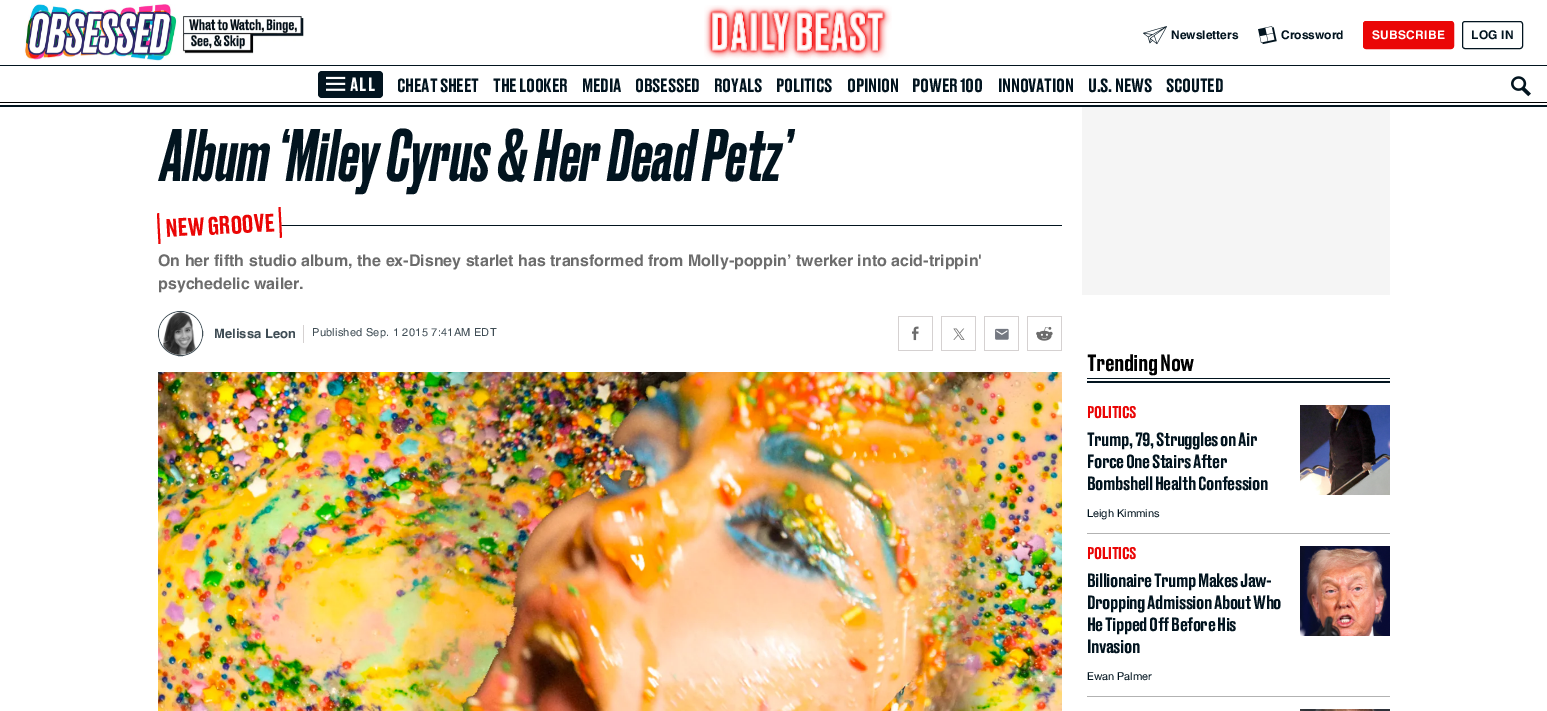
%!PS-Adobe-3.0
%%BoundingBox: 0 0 1547 711
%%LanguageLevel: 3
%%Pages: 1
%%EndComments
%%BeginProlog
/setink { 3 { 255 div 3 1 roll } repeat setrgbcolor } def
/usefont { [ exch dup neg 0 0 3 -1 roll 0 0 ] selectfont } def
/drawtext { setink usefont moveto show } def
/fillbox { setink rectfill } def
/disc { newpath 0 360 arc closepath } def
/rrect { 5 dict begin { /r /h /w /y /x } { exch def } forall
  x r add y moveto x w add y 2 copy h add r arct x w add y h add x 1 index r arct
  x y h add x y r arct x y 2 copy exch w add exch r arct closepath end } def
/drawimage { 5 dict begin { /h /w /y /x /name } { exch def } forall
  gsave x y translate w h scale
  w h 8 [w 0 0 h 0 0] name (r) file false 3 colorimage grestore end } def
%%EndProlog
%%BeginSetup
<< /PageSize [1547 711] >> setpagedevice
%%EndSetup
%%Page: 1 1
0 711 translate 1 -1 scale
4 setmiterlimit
0 0 1547 711 255 255 255 fillbox
0 105 1547 2 2 20 31 fillbox
(assets/img1.rgb) 24 4 280 57 drawimage
(assets/img2.rgb) 704 5 188 55 drawimage
(assets/img3.rgb) 1143 26 24 19 drawimage
(Newsletters) 1171 39 /Helvetica-Bold 12 2 20 31 drawtext
(assets/img4.rgb) 1258 26 19 19 drawimage
(Crossword) 1281 39 /Helvetica-Bold 12 2 20 31 drawtext
234 6 6 setink
1363.5 21.5 90 27 2.5 rrect gsave fill grestore
stroke
255 255 255 setink
1372 39 moveto 0.25 0 (SUBSCRIBE) ashow
2 20 31 setink
1462.5 21.5 60 27 2.5 rrect stroke
1471 39 moveto 0.25 0 (LOG IN) ashow
0 65 1547 1 2 20 31 fillbox
318 71 65 27 4 rrect fill
(assets/img5.rgb) 326 76 20 15 drawimage
/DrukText-Medium 18 usefont
255 255 255 setink
350 91 moveto 1 0 (ALL) ashow
2 20 31 setink
397 92 moveto -0.25 0 (CHEAT SHEET) ashow
493 92 moveto -0.25 0 (THE LOOKER) ashow
582 92 moveto -0.25 0 (MEDIA) ashow
635 92 moveto -0.25 0 (OBSESSED) ashow
714 92 moveto -0.25 0 (ROYALS) ashow
776 92 moveto -0.25 0 (POLITICS) ashow
847 92 moveto -0.25 0 (OPINION) ashow
912 92 moveto -0.25 0 (POWER 100) ashow
998 92 moveto -0.25 0 (INNOVATION) ashow
1088 92 moveto -0.25 0 (U.S. NEWS) ashow
1166 92 moveto -0.25 0 (SCOUTED) ashow
(assets/img6.rgb) 1511 76 20 21 drawimage
0 102 1547 1 0 0 0 fillbox
/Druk-MediumItalic 70 usefont
2 20 31 setink
161 181 moveto 0.5 0 (Album ‘Miley Cyrus & Her Dead Petz’) ashow
281 225 781 1 2 20 31 fillbox
255 255 255 setink
157 213 moveto 280 207 lineto 282 238 lineto 158 244 lineto closepath fill
234 6 6 setink
278.5 207 moveto 280.5 207 lineto 282 237.5 lineto 280 238 lineto closepath fill
157 213.5 moveto 159 213 lineto 160.5 244 lineto 158.5 244 lineto closepath fill
/DrukText-Medium 24 usefont
gsave 166 237 translate -3 rotate 0 0 moveto -0.25 0 (NEW GROOVE) ashow grestore
(On her fifth studio album, the ex-Disney starlet has transformed from Molly-poppin’ twerker into acid-trippin') 158 266 /Helvetica-Bold 16 108 108 108 drawtext
(psychedelic wailer.) 158 289 /Helvetica-Bold 16 108 108 108 drawtext
63 77 85 setink
180.5 333.5 22 disc stroke
(assets/img7.rgb) 159 312 43 43 drawimage
(Melissa Leon) 214 338 /Helvetica-Bold 13 63 77 85 drawtext
303 325 1 18 213 209 209 fillbox
/Helvetica-Regular 11 usefont
63 77 85 setink
312 336 moveto 0.25 0 (Published Sep. 1 2015 7:41AM EDT) ashow
(assets/img8.rgb) 898 316 35 35 drawimage
(assets/img9.rgb) 941 316 35 35 drawimage
(assets/img10.rgb) 984 316 35 35 drawimage
(assets/img11.rgb) 1027 316 35 35 drawimage
(assets/img12.rgb) 158 372 904 339 drawimage
1082 107 308 188 245 245 245 fillbox
/DrukText-Medium 22 usefont
0 0 0 setink
1087 371 moveto -0.5 0 (Trending Now) ashow
1087 378 303 1 2 20 31 fillbox
1087 381 303 2 2 20 31 fillbox
1087 533 303 1 178 178 178 fillbox
/DrukText-Medium 16 usefont
234 6 6 setink
1087 418 moveto -0.25 0 (POLITICS) ashow
/DrukText-Medium 18 usefont
2 20 31 setink
1087 446 moveto -0.5 0 (Trump, 79, Struggles on Air) ashow
1087 468 moveto -0.5 0 (Force One Stairs After) ashow
1087 490 moveto -0.5 0 (Bombshell Health Confession) ashow
(Leigh Kimmins) 1087 517 /HelveticaNeue-Regular 11 2 20 31 drawtext
(assets/img13.rgb) 1300 405 90 90 drawimage
1087 696 303 1 178 178 178 fillbox
/DrukText-Medium 16 usefont
234 6 6 setink
1087 559 moveto -0.25 0 (POLITICS) ashow
/DrukText-Medium 18 usefont
2 20 31 setink
1087 587 moveto -0.5 0 (Billionaire Trump Makes Jaw-) ashow
1087 609 moveto -0.5 0 (Dropping Admission About Who) ashow
1087 631 moveto -0.5 0 (He Tipped Off Before His) ashow
1087 653 moveto -0.5 0 (Invasion) ashow
(Ewan Palmer) 1087 680 /HelveticaNeue-Regular 11 2 20 31 drawtext
(assets/img14.rgb) 1300 546 90 90 drawimage
(assets/img15.rgb) 1300 709 90 2 drawimage
showpage
%%EOF
